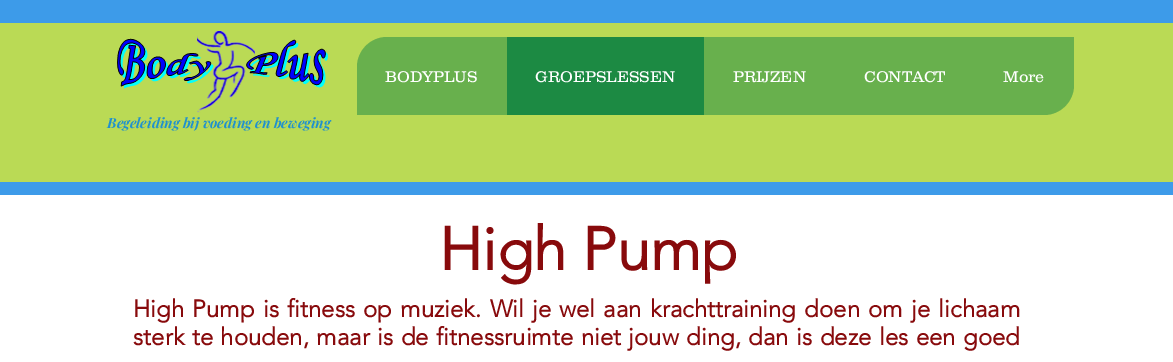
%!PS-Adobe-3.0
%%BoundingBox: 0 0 1173 362
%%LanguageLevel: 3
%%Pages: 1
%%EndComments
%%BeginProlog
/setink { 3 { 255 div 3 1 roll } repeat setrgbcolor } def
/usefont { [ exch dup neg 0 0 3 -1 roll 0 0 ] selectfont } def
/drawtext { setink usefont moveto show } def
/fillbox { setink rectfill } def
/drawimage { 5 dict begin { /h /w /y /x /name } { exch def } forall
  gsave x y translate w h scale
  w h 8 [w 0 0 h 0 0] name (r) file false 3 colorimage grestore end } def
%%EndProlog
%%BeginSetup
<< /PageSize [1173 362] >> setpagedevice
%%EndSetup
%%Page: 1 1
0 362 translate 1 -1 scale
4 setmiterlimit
0 0 1173 362 255 255 255 fillbox
0 0 1173 195 61 155 233 fillbox
0 23 1173 159 186 218 85 fillbox
(assets/img1.rgb) 197 31 58 82 drawimage
(assets/img2.rgb) 117 38 211 51 drawimage
104 176 77 setink
387 37 moveto 1074 37 lineto 1074 85 lineto 1074 101.5 1060.5 115 1044 115 curveto 357 115 lineto 357 67 lineto 357 50.5 370.5 37 387 37 curveto closepath fill
(BODYPLUS) 385 82 /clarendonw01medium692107-Light 16 255 255 255 drawtext
507 37 197 78 28 138 67 fillbox
(GROEPSLESSEN) 535 82 /clarendonw01medium692107-Light 16 255 255 255 drawtext
(PRIJZEN) 733 82 /clarendonw01medium692107-Light 16 255 255 255 drawtext
(CONTACT) 864 82 /clarendonw01medium692107-Light 16 255 255 255 drawtext
(More) 1003 82 /clarendonw01medium692107-Light 16 255 255 255 drawtext
(Begeleiding bij voeding en beweging) 107 128 /PlayfairDisplay-BoldItalic 14 32 145 206 drawtext
(High Pump) 439 270 /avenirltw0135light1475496-Bold 60 136 10 12 drawtext
/avenirltw0135light1475496-Bold 24 usefont
133 317 moveto 2 0 32 (High Pump is fitness op muziek. Wil je wel aan krachttraining doen om je lichaam) widthshow
133 345 moveto 1.25 0 32 (sterk te houden, maar is de fitnessruimte niet jouw ding, dan is deze les een goed) widthshow
showpage
%%EOF
